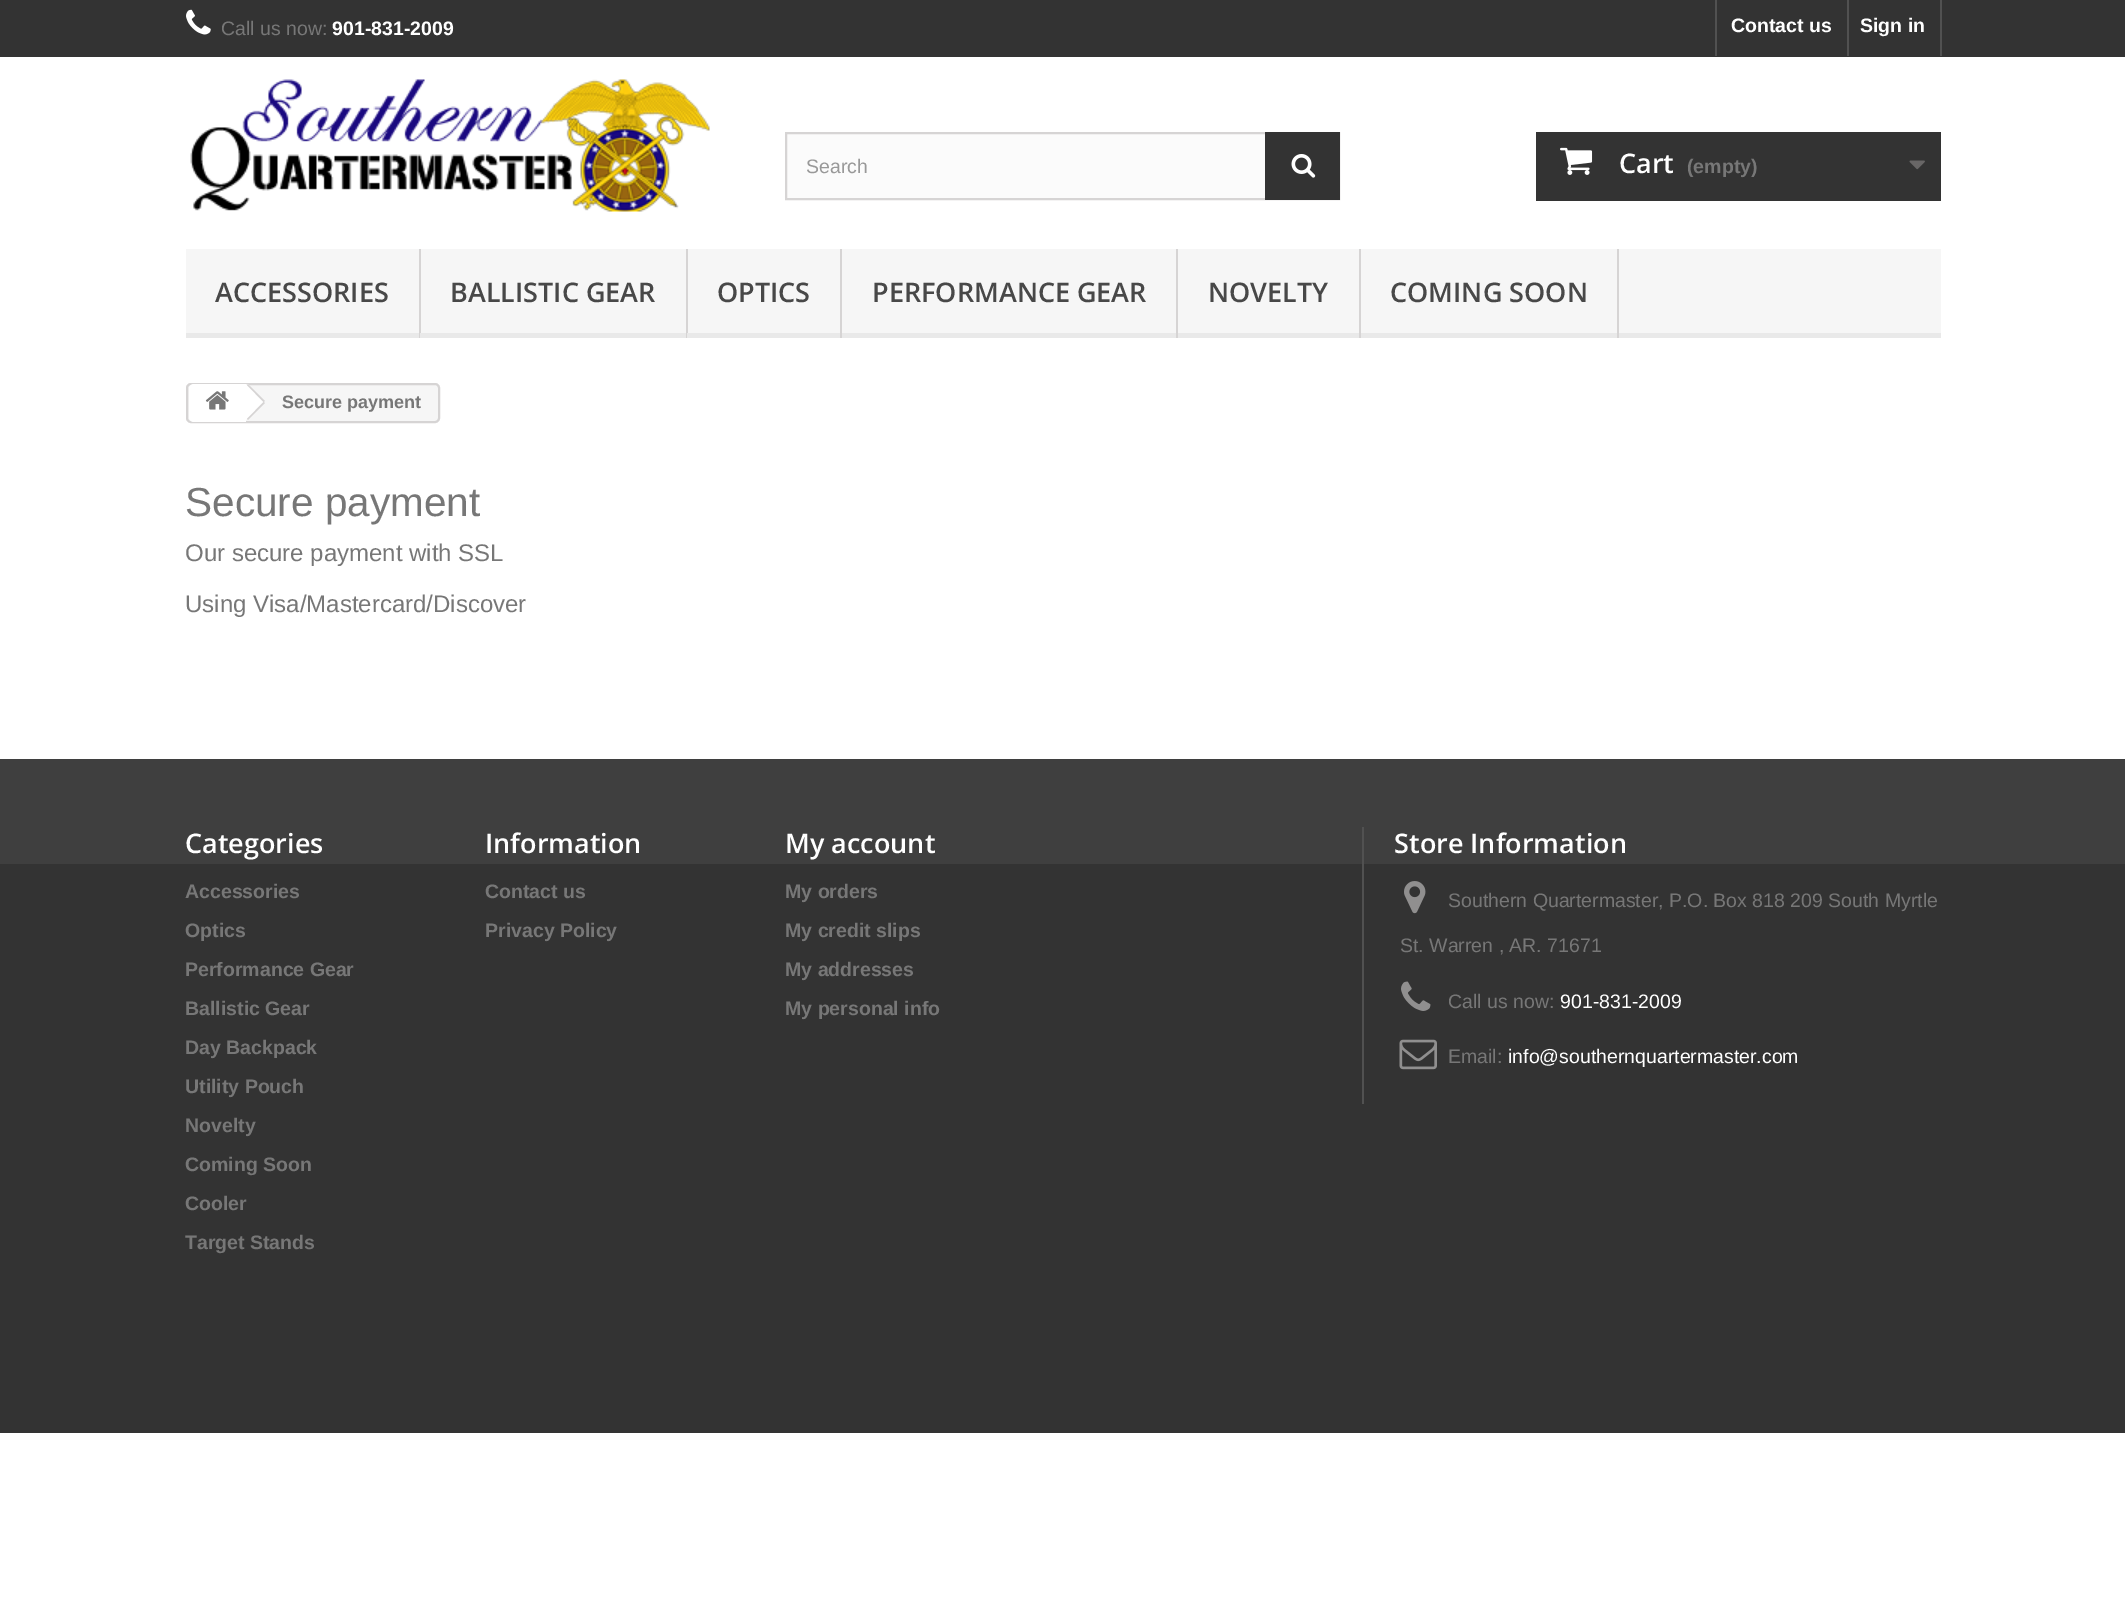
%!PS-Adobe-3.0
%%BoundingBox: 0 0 2125 1606
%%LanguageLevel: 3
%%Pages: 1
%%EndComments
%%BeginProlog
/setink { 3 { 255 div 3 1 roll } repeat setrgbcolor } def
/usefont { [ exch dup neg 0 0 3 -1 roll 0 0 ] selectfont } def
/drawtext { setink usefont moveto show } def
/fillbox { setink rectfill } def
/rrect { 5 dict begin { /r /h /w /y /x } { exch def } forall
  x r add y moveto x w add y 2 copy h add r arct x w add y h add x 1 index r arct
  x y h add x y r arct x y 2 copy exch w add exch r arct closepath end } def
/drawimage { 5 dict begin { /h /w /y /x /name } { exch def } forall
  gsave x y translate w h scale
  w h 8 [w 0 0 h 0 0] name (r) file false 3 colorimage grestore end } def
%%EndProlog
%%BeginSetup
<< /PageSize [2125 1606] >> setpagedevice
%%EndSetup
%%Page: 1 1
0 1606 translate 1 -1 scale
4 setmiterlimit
0 0 2125 1606 255 255 255 fillbox
0 0 2125 57 51 51 51 fillbox
(assets/img1.rgb) 186 9 25 26 drawimage
(Call us now:) 221 35 /LiberationSans-Regular 19.5 119 119 119 drawtext
(901-831-2009) 332 35 /LiberationSans-Bold 19.5 255 255 255 drawtext
1715 0 2 56 81 81 81 fillbox
(Contact us) 1731 32 /LiberationSans-Bold 19.5 255 255 255 drawtext
1940 0 2 56 81 81 81 fillbox
1847 0 2 56 81 81 81 fillbox
(Sign in) 1860 32 /LiberationSans-Bold 19.5 255 255 255 drawtext
(assets/img2.rgb) 190 79 520 133 drawimage
787 134 478 64 251 251 251 fillbox
214 212 212 setink
2 setlinewidth
786 133 553 66 rectstroke
(Search) 806 173 /LiberationSans-Regular 19.5 153 153 153 drawtext
1265 132 75 68 51 51 51 fillbox
(assets/img3.rgb) 1291 154 25 24 drawimage
1536 132 405 69 51 51 51 fillbox
(assets/img4.rgb) 1560 147 33 28 drawimage
(Cart) 1619 173 /OpenSans-SemiBold 27 255 255 255 drawtext
(\(empty\)) 1687 173 /LiberationSans-Bold 19.5 119 119 119 drawtext
(assets/img5.rgb) 1909 160 16 10 drawimage
186 249 1755 84 246 246 246 fillbox
186 333 1755 5 233 233 233 fillbox
419 249 2 89 214 212 212 fillbox
(ACCESSORIES) 215 302 /OpenSans-SemiBold 27 72 72 72 drawtext
686 249 2 89 214 212 212 fillbox
420 333 1 5 233 233 233 fillbox
(BALLISTIC GEAR) 450 302 /OpenSans-SemiBold 27 72 72 72 drawtext
840 249 2 89 214 212 212 fillbox
687 333 1 5 233 233 233 fillbox
(OPTICS) 717 302 /OpenSans-SemiBold 27 72 72 72 drawtext
1176 249 2 89 214 212 212 fillbox
(PERFORMANCE GEAR) 872 302 /OpenSans-SemiBold 27 72 72 72 drawtext
1359 249 2 89 214 212 212 fillbox
(NOVELTY) 1208 302 /OpenSans-SemiBold 27 72 72 72 drawtext
1617 249 2 89 214 212 212 fillbox
(COMING SOON) 1390 302 /OpenSans-SemiBold 27 72 72 72 drawtext
246 246 246 setink
187 384 252 38 4 rrect gsave fill grestore
214 212 212 setink
stroke
255 255 255 setink
194 384 moveto 246 384 lineto 246 422 lineto 194 422 lineto 191 422 189 420 189 417 curveto 189 389 lineto 189 386 191 384 194 384 curveto closepath fill
249 385 moveto 263.5 400 lineto 265 401 265 403 263.5 404 curveto 249 419 lineto 247.5 420 246 420 244.5 419 curveto 230 404 lineto 228.5 403 228.5 401 230 400 curveto 244.5 385 lineto 246 384 247.5 384 249 385 curveto closepath fill
(assets/img6.rgb) 205 391 24 19 drawimage
214 212 212 setink
248 384 moveto 265 401 lineto 263.5 402 lineto 247 385 lineto closepath 263.5 402 moveto 265 403 lineto 248 420 lineto 247 419 lineto closepath fill
(Secure payment) 282 408 /LiberationSans-Bold 18 119 119 119 drawtext
(Secure payment) 185 516 /LiberationSans-Regular 40.5 119 119 119 drawtext
(Our secure payment with SSL) 185 561 /LiberationSans-Regular 24 119 119 119 drawtext
(Using Visa/Mastercard/Discover) 185 612 /LiberationSans-Regular 24 119 119 119 drawtext
0 864 2125 569 51 51 51 fillbox
0 759 2125 105 63 63 63 fillbox
(Categories) 185 853 /OpenSans-SemiBold 27 255 255 255 drawtext
(Accessories) 185 898 /LiberationSans-Bold 19.5 119 119 119 drawtext
(Optics) 185 937 /LiberationSans-Bold 19.5 119 119 119 drawtext
(Performance Gear) 185 976 /LiberationSans-Bold 19.5 119 119 119 drawtext
(Ballistic Gear) 185 1015 /LiberationSans-Bold 19.5 119 119 119 drawtext
(Day Backpack) 185 1054 /LiberationSans-Bold 19.5 119 119 119 drawtext
(Utility Pouch) 185 1093 /LiberationSans-Bold 19.5 119 119 119 drawtext
(Novelty) 185 1132 /LiberationSans-Bold 19.5 119 119 119 drawtext
(Coming Soon) 185 1171 /LiberationSans-Bold 19.5 119 119 119 drawtext
(Cooler) 185 1210 /LiberationSans-Bold 19.5 119 119 119 drawtext
(Target Stands) 185 1249 /LiberationSans-Bold 19.5 119 119 119 drawtext
(Information) 485 853 /OpenSans-SemiBold 27 255 255 255 drawtext
(Contact us) 485 898 /LiberationSans-Bold 19.5 119 119 119 drawtext
(Privacy Policy) 485 937 /LiberationSans-Bold 19.5 119 119 119 drawtext
(My account) 785 853 /OpenSans-SemiBold 27 255 255 255 drawtext
(My orders) 785 898 /LiberationSans-Bold 19.5 119 119 119 drawtext
(My credit slips) 785 937 /LiberationSans-Bold 19.5 119 119 119 drawtext
(My addresses) 785 976 /LiberationSans-Bold 19.5 119 119 119 drawtext
(My personal info) 785 1015 /LiberationSans-Bold 19.5 119 119 119 drawtext
1362 827 2 277 81 81 81 fillbox
(Store Information) 1394 853 /OpenSans-SemiBold 27 255 255 255 drawtext
(assets/img7.rgb) 1404 881 22 33 drawimage
(Southern Quartermaster, P.O. Box 818 209 South Myrtle) 1448 907 /LiberationSans-Regular 19.5 119 119 119 drawtext
(St. Warren , AR. 71671) 1400 952 /LiberationSans-Regular 19.5 119 119 119 drawtext
(assets/img8.rgb) 1401 981 30 30 drawimage
(Call us now:) 1448 1008 /LiberationSans-Regular 19.5 119 119 119 drawtext
(901-831-2009) 1560 1008 /LiberationSans-Regular 19.5 255 255 255 drawtext
(assets/img9.rgb) 1399 1039 38 31 drawimage
(Email:) 1448 1063 /LiberationSans-Regular 19.5 119 119 119 drawtext
(info@southernquartermaster.com) 1508 1063 /LiberationSans-Regular 19.5 255 255 255 drawtext
showpage
%%EOF
